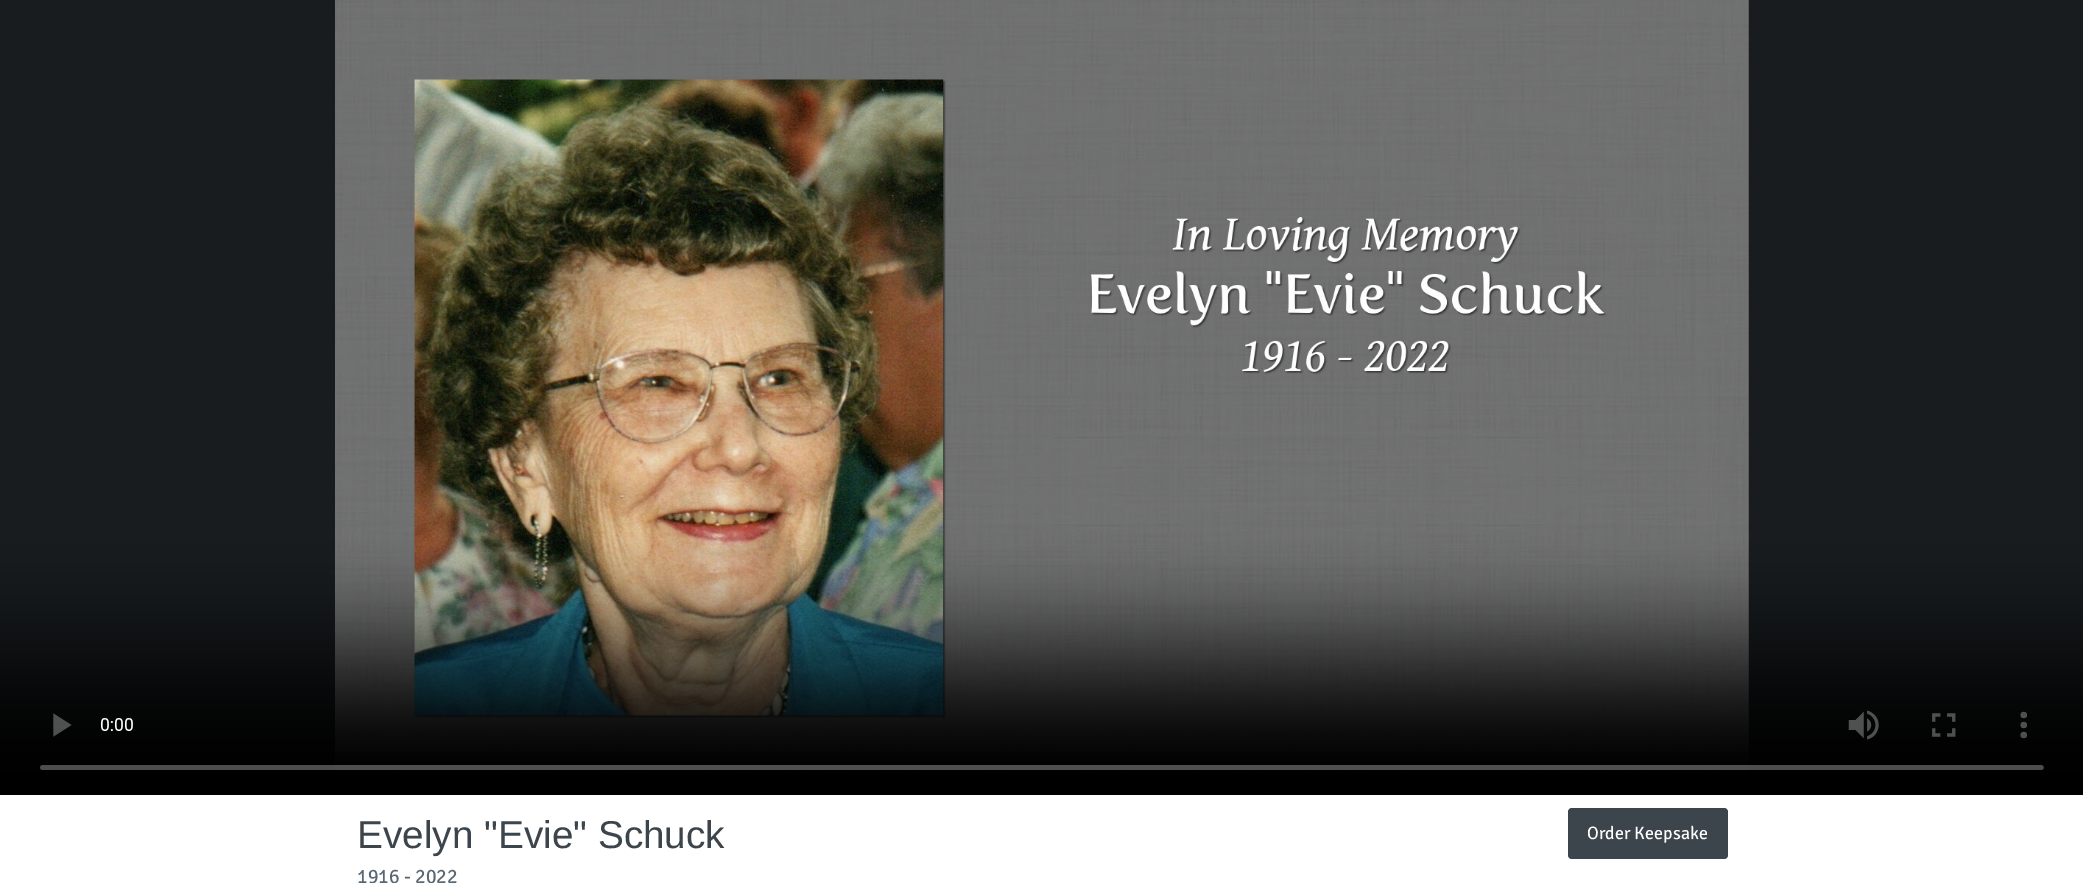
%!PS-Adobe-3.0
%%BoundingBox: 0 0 2083 883
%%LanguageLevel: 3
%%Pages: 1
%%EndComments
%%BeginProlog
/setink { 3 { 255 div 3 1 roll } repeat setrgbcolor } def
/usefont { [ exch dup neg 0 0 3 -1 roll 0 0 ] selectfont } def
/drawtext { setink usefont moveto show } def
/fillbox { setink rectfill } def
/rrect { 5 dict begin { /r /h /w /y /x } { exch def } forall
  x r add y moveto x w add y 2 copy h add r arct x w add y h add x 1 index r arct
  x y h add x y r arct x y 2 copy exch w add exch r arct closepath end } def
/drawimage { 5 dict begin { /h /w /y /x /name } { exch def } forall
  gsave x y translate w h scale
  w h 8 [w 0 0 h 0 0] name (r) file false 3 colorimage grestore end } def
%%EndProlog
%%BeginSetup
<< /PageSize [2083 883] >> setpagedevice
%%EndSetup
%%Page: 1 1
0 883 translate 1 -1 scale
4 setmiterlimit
0 0 2083 883 255 255 255 fillbox
0 0 2083 785 24 28 31 fillbox
(assets/img1.rgb) 0 0 2083 795 drawimage
(Evelyn "Evie" Schuck) 357 848 /LiberationSans-Regular 38.75 60 68 76 drawtext
(1916 - 2022) 357 883 /SignikaNegative-Regular 20 88 103 115 drawtext
60 68 76 setink
1568 808 160 51 4 rrect fill
(Order Keepsake) 1587 839 /SignikaNegative-Regular 18 254 254 254 drawtext
showpage
%%EOF
